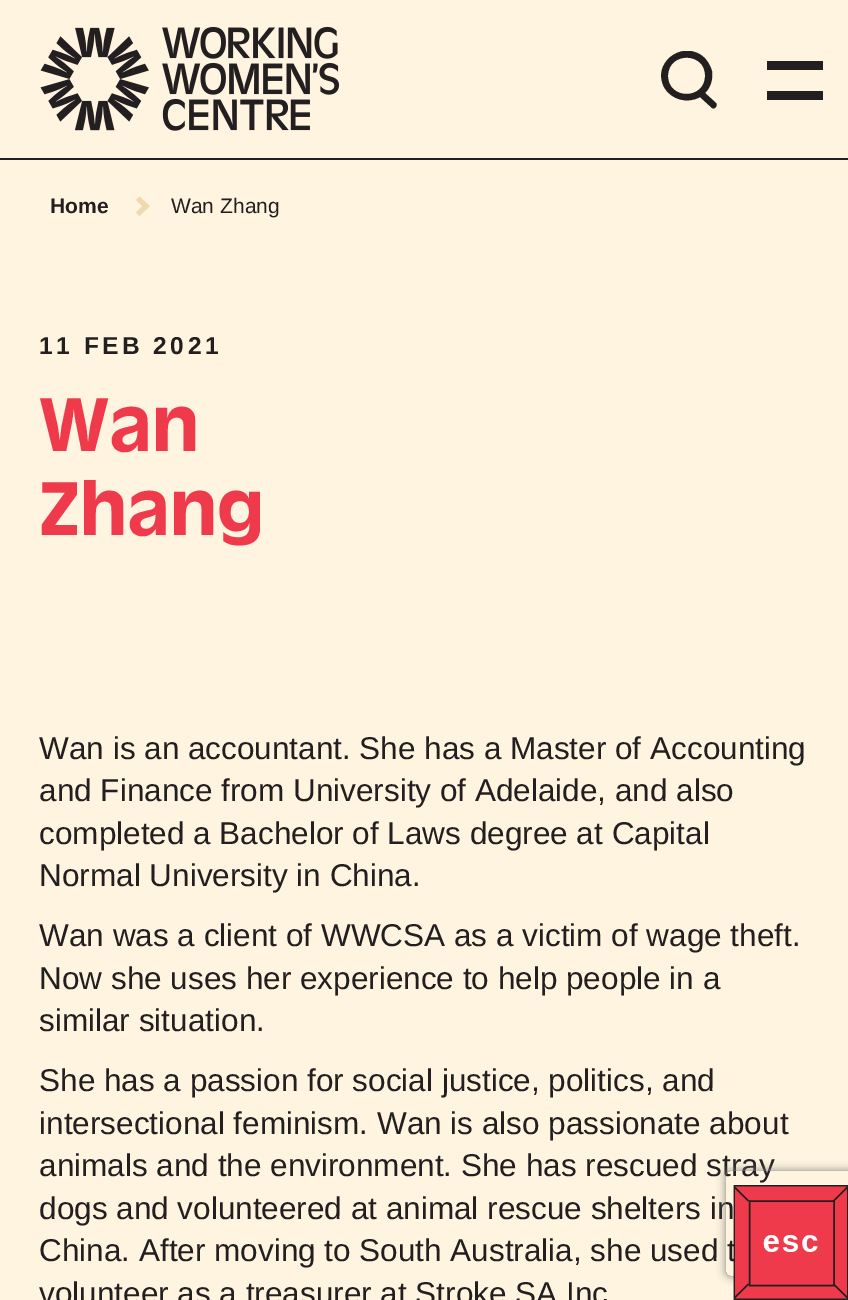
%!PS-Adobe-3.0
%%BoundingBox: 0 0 848 1300
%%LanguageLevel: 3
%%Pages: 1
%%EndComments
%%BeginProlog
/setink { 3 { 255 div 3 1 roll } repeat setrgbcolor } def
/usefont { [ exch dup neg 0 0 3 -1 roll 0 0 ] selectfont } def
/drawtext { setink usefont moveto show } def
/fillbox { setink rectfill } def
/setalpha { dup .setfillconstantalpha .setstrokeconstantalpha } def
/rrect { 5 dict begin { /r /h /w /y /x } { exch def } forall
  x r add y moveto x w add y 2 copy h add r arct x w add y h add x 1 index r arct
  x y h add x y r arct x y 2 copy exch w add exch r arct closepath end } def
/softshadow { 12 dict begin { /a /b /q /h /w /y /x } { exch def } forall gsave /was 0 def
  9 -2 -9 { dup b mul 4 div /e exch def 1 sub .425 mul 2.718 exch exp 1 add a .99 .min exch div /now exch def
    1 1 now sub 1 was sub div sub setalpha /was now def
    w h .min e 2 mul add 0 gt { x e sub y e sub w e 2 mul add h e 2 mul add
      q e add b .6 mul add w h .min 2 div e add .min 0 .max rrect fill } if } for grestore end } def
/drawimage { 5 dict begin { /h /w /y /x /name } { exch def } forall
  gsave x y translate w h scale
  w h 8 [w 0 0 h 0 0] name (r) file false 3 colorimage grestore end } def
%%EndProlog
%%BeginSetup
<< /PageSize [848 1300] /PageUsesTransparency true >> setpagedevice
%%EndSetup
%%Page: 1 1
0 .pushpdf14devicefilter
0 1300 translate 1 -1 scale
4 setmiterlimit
0 0 848 1300 255 244 223 fillbox
0 158 848 2 35 31 32 fillbox
(assets/img1.rgb) 40 26 299 105 drawimage
gsave
660 51 58 58 rectclip
705 76 moveto 705 100 668 100 668 76 curveto 668 51 706 52 705 76 curveto 716 103 moveto 705 93 lineto 711 87 713 79 712 71 curveto 710 65 707 59 701 55 curveto 680 41 652 64 664 87 curveto 671 100 688 104 700 97 curveto 712 108 lineto 715 110 718 105 716 103 curveto eofill
grestore
767 61 56 9 35 31 32 fillbox
767 91 56 9 35 31 32 fillbox
(Home) 50 213 /LiberationSans-Bold 21 35 31 32 drawtext
239 217 173 setink
136 200 moveto 139.5 196.5 lineto 149.5 206 lineto 146 210 lineto closepath fill
136 212.5 moveto 146 202.5 lineto 149.5 206 lineto 139.5 216 lineto closepath fill
(Wan Zhang) 171 213 /LiberationSans-Regular 21 35 31 32 drawtext
/LiberationSans-Bold 24.5 usefont
39 354 moveto 3.5 0 (11 FEB 2021) ashow
(Wan) 39 451 /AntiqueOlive-Medium 79 239 58 76 drawtext
(Zhang) 39 535 /AntiqueOlive-Medium 79 239 58 76 drawtext
(Wan is an accountant. She has a Master of Accounting) 39 759 /LiberationSans-Regular 31.5 35 31 32 drawtext
(and Finance from University of Adelaide, and also) 39 801 /LiberationSans-Regular 31.5 35 31 32 drawtext
(completed a Bachelor of Laws degree at Capital) 39 844 /LiberationSans-Regular 31.5 35 31 32 drawtext
(Normal University in China.) 39 886 /LiberationSans-Regular 31.5 35 31 32 drawtext
(Wan was a client of WWCSA as a victim of wage theft.) 39 946 /LiberationSans-Regular 31.5 35 31 32 drawtext
(Now she uses her experience to help people in a) 39 989 /LiberationSans-Regular 31.5 35 31 32 drawtext
(similar situation.) 39 1031 /LiberationSans-Regular 31.5 35 31 32 drawtext
(She has a passion for social justice, politics, and) 39 1091 /LiberationSans-Regular 31.5 35 31 32 drawtext
(intersectional feminism. Wan is also passionate about) 39 1134 /LiberationSans-Regular 31.5 35 31 32 drawtext
(animals and the environment. She has rescued stray) 39 1176 /LiberationSans-Regular 31.5 35 31 32 drawtext
(dogs and volunteered at animal rescue shelters in) 39 1219 /LiberationSans-Regular 31.5 35 31 32 drawtext
(China. After moving to South Australia, she used t) 39 1261 /LiberationSans-Regular 31.5 35 31 32 drawtext
(volunteer as a treasurer at Stroke SA Inc) 39 1304 /LiberationSans-Regular 31.5 35 31 32 drawtext
gsave
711 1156 moveto 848 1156 lineto 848 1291 lineto 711 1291 lineto closepath 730 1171 moveto 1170 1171 lineto 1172 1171 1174 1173 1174 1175 curveto 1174 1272 lineto 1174 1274 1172 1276 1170 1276 curveto 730 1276 lineto 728 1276 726 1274 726 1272 curveto 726 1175 lineto 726 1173 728 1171 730 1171 curveto closepath eoclip newpath
128 128 128 setink
726 1171 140 105 4 4.5 1 softshadow
grestore
(assets/img2.rgb) 733 1185 115 115 drawimage
.poppdf14devicefilter showpage
%%EOF
